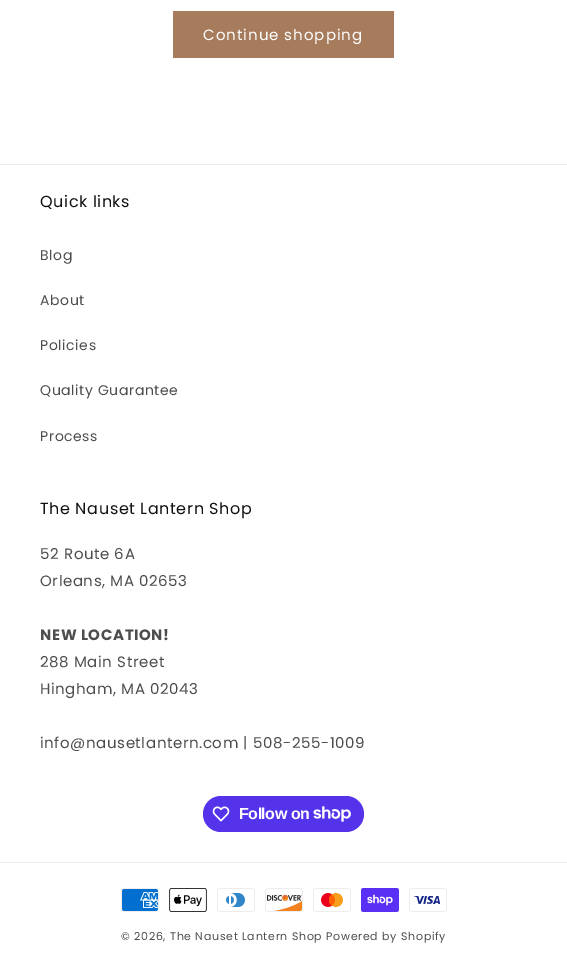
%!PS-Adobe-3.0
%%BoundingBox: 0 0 567 972
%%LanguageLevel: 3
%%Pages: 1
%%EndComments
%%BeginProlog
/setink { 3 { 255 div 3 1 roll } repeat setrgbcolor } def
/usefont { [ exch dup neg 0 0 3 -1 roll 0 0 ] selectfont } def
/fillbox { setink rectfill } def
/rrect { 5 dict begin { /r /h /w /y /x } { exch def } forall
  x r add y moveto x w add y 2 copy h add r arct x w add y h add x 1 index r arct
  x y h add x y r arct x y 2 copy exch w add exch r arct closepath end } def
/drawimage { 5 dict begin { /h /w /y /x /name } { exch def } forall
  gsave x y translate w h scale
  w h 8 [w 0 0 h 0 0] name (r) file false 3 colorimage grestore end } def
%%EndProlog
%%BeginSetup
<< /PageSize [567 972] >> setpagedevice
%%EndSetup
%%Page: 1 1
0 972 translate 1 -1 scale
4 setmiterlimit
0 0 567 972 255 255 255 fillbox
173 11 221 47 167 124 92 fillbox
/Poppins-Regular 15 usefont
255 255 255 setink
203 40 moveto 1 0 (Continue shopping) ashow
0 164 567 1 236 236 236 fillbox
/Poppins-Regular 16 usefont
18 18 18 setink
40 207 moveto 0.6 0 (Quick links) ashow
/Poppins-Regular 14 usefont
77 77 77 setink
40 260 moveto 0.6 0 (Blog) ashow
40 305 moveto 0.6 0 (About) ashow
40 350 moveto 0.6 0 (Policies) ashow
40 395 moveto 0.6 0 (Quality Guarantee) ashow
40 441 moveto 0.6 0 (Process) ashow
/Poppins-Regular 16 usefont
18 18 18 setink
40 514 moveto 0.6 0 (The Nauset Lantern Shop) ashow
/Poppins-Regular 15 usefont
77 77 77 setink
40 559 moveto 0.6 0 (52 Route 6A) ashow
40 586 moveto 0.6 0 (Orleans, MA 02653) ashow
/Poppins-Bold 15 usefont
40 640 moveto 0.6 0 (NEW LOCATION!) ashow
/Poppins-Regular 15 usefont
40 667 moveto 0.6 0 (288 Main Street) ashow
40 694 moveto 0.6 0 (Hingham, MA 02043) ashow
40 748 moveto 0.6 0 (info@nausetlantern.com | 508-255-1009) ashow
84 51 235 setink
203 796 161 36 18 rrect fill
(assets/img1.rgb) 212 806 18 16 drawimage
/LiberationSans-Bold 16 usefont
255 255 255 setink
239 819 moveto -0.5 0 (Follow on) ashow
(assets/img2.rgb) 313 806 38 16 drawimage
0 862 567 1 236 236 236 fillbox
(assets/img3.rgb) 121 888 38 24 drawimage
(assets/img4.rgb) 169 888 38 24 drawimage
(assets/img5.rgb) 217 888 38 24 drawimage
(assets/img6.rgb) 265 888 38 24 drawimage
(assets/img7.rgb) 313 888 38 24 drawimage
(assets/img8.rgb) 361 888 38 24 drawimage
(assets/img9.rgb) 409 888 38 24 drawimage
/Poppins-Regular 11 usefont
77 77 77 setink
121 940 moveto 0.7 0 (© 2026, The Nauset Lantern Shop Powered by Shopify) ashow
showpage
%%EOF
